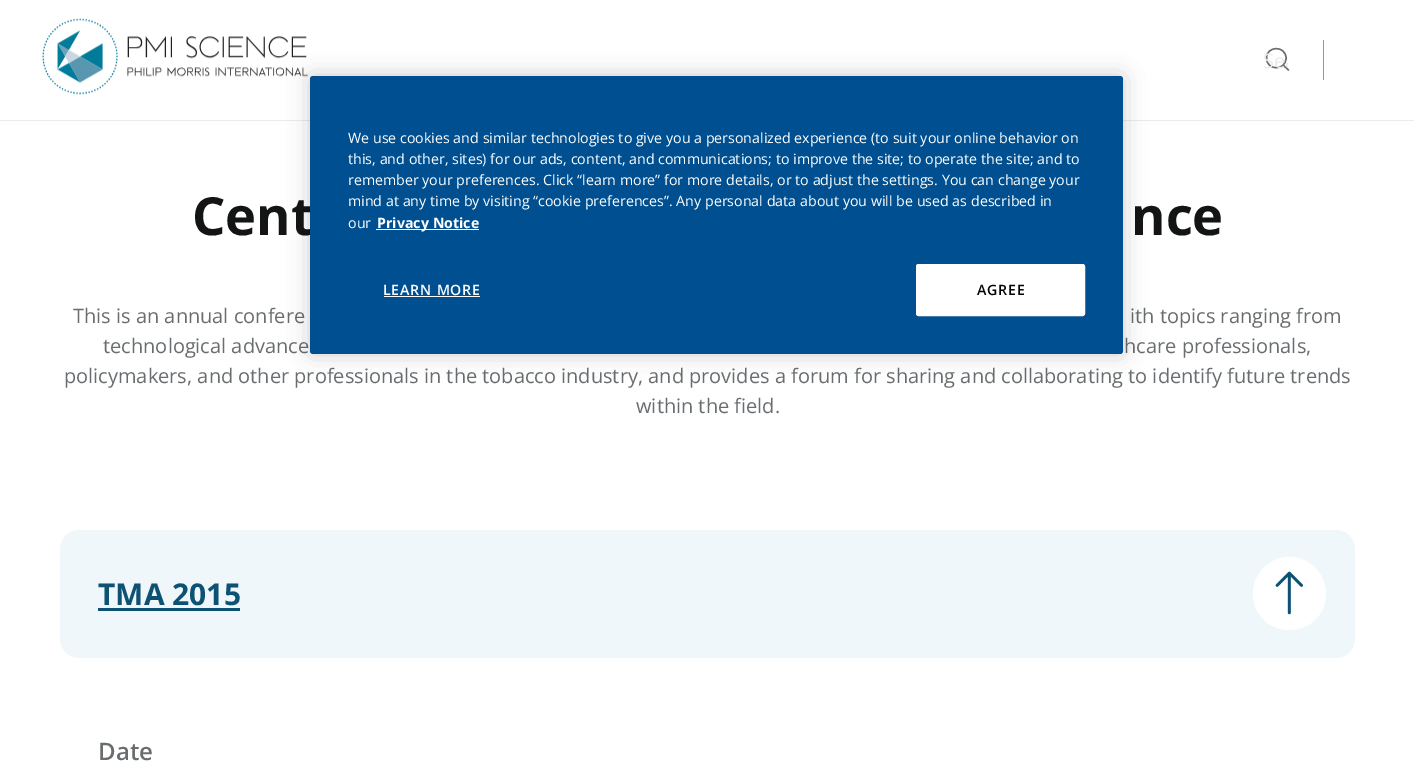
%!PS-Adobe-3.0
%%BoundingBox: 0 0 1414 762
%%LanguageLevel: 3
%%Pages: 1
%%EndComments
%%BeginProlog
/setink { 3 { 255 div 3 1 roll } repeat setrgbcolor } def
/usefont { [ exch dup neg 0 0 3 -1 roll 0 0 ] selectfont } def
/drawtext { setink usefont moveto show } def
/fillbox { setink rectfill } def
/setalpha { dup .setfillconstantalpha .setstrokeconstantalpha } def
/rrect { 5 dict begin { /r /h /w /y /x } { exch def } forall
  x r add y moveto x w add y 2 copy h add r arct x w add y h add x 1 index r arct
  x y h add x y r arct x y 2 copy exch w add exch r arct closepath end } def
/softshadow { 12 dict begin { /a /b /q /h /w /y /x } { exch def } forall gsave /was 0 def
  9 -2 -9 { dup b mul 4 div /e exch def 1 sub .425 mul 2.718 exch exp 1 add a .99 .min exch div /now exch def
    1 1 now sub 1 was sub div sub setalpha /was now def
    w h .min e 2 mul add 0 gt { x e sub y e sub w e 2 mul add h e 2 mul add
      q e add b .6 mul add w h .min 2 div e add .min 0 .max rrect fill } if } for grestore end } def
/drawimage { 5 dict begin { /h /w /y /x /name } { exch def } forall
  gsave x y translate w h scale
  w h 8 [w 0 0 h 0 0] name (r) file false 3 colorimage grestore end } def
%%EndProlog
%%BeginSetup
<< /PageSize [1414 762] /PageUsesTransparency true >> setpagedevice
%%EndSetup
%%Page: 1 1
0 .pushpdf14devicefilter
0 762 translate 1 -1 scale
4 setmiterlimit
0 0 1414 762 255 255 255 fillbox
0 120 1414 1 233 236 237 fillbox
(assets/img1.rgb) 42 18 266 77 drawimage
105 109 111 setink
1.4 setlinewidth
1 setlinecap
1 setlinejoin
1288.5 70 moveto 1283 65 lineto 1286 58 moveto 1286 71 1266.5 71 1266.5 58 curveto 1266.5 45.5 1286 45.5 1286 58 curveto closepath stroke
gsave
1263 46 25 28 rectclip
(Sea) 1263 68 /OpenSans-Regular 20 235 235 235 drawtext
grestore
1323 40 1 40 148 153 156 fillbox
(Cent) 192 235 /OpenSans-Bold 52.5 19 20 20 drawtext
(nce) 1131 235 /OpenSans-Bold 52.5 19 20 20 drawtext
(This is an annual confere) 73 323 /OpenSans-Regular 20 105 109 111 drawtext
(ith topics ranging from) 1130 323 /OpenSans-Regular 20 105 109 111 drawtext
(technological advance) 103 353 /OpenSans-Regular 20 105 109 111 drawtext
(hcare professionals,) 1124 353 /OpenSans-Regular 20 105 109 111 drawtext
(policymakers, and other professionals in the tobacco industry, and provides a forum for sharing and collaborating to identify future trends) 64 383 /OpenSans-Regular 20 105 109 111 drawtext
(within the field.) 636 413 /OpenSans-Regular 20 105 109 111 drawtext
240 247 250 setink
60 530 1295 128 19 rrect fill
(TMA 2015) 98 605 /OpenSans-Bold 30 13 82 116 drawtext
98 608 142 3 13 82 116 fillbox
255 255 255 setink
1289 630 moveto 1269 630 1253 614 1253 594 curveto 1253 574 1269 557 1289 557 curveto 1310 557 1326 574 1326 594 curveto 1326 614 1310 630 1289 630 curveto closepath fill
(assets/img2.rgb) 1275 571 28 44 drawimage
(Date) 98 760 /OpenSans-SemiBold 24 105 109 111 drawtext
0 0 0 setink
310 76 813 278 3 11 0.2 softshadow
0 79 144 setink
310 76 813 278 3 rrect fill
(We use cookies and similar technologies to give you a personalized experience \(to suit your online behavior on) 348 143 /OpenSans-Regular 14.23 255 255 255 drawtext
(this, and other, sites\) for our ads, content, and communications; to improve the site; to operate the site; and to) 348 164 /OpenSans-Regular 14.23 255 255 255 drawtext
(remember your preferences. Click “learn more” for more details, or to adjust the settings. You can change your) 348 185 /OpenSans-Regular 14.23 255 255 255 drawtext
(mind at any time by visiting “cookie preferences”. Any personal data about you will be used as described in) 348 206 /OpenSans-Regular 14.23 255 255 255 drawtext
(our) 348 228 /OpenSans-Regular 14.23 255 255 255 drawtext
376 229 103 1 255 255 255 fillbox
(Privacy Notice) 377 228 /OpenSans-Bold 14.23 255 255 255 drawtext
/OpenSans-SemiBold 14.23 usefont
383 295 moveto 0.75 0 (LEARN MORE) ashow
384 296 96 1 255 250 250 fillbox
255 255 255 setink
916.5 264.5 168 51 2 rrect gsave fill grestore
1 setlinewidth
0 setlinecap
0 setlinejoin
stroke
5 5 5 setink
977 295 moveto 0.75 0 (AGREE) ashow
.poppdf14devicefilter showpage
%%EOF
